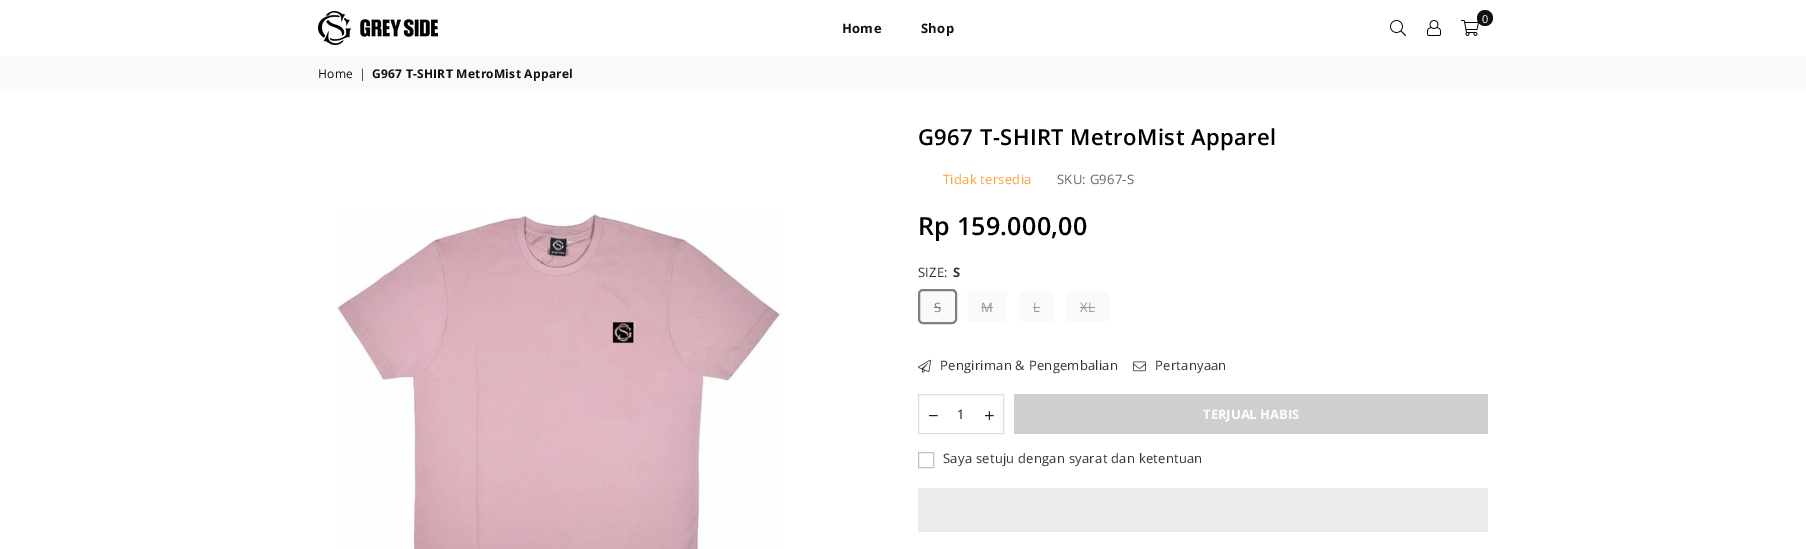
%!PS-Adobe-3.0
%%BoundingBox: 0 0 1806 549
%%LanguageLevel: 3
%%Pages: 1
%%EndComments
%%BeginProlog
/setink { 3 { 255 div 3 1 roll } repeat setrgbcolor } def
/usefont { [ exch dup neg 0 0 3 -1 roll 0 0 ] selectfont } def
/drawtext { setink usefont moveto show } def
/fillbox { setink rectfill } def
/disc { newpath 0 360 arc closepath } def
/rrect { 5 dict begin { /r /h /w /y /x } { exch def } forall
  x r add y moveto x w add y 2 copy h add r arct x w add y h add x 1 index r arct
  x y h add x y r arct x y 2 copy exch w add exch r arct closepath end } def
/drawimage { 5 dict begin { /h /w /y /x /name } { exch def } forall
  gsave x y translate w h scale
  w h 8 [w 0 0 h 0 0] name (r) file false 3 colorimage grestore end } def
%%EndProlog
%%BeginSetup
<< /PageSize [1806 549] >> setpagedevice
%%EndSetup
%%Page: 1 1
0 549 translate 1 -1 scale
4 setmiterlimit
0 0 1806 549 255 255 255 fillbox
(assets/img1.rgb) 318 11 120 34 drawimage
(assets/img2.rgb) 1390 20 16 16 drawimage
(assets/img3.rgb) 1427 20 14 16 drawimage
(assets/img4.rgb) 1461 20 18 16 drawimage
17 17 17 setink
1485 18 8 disc fill
/OpenSans-Regular 11 usefont
255 255 255 setink
1482 23 moveto 0.25 0 (0) ashow
/OpenSans-Bold 13 usefont
17 17 17 setink
842 33 moveto 0.25 0 (Home) ashow
921 33 moveto 0.25 0 (Shop) ashow
0 56 1806 35 249 249 249 fillbox
/OpenSans-Regular 12 usefont
17 17 17 setink
318 78 moveto 0.25 0 (Home) ashow
359 78 moveto 0.25 0 (|) ashow
/OpenSans-Bold 12 usefont
372 78 moveto 0.25 0 (G967 T-SHIRT MetroMist Apparel) ashow
(assets/img5.rgb) 337 212 445 337 drawimage
/OpenSans-SemiBold 22 usefont
0 0 0 setink
918 145 moveto 0.45 0 (G967 T-SHIRT MetroMist Apparel) ashow
/OpenSans-Regular 13 usefont
255 159 59 setink
943 184 moveto 0.25 0 (Tidak tersedia) ashow
102 102 102 setink
1057 184 moveto 0.25 0 (SKU: G967-S) ashow
/OpenSans-SemiBold 25 usefont
0 0 0 setink
918 235 moveto 0.25 0 (Rp 159.000,00) ashow
/OpenSans-Regular 13 usefont
51 51 51 setink
918 277 moveto 0.25 0 (SIZE:) ashow
/OpenSans-Bold 13 usefont
953 277 moveto 0.25 0 (S) ashow
250 250 250 setink
919 290 37 33 4 rrect gsave fill grestore
128 128 128 setink
2 setlinewidth
stroke
/OpenSans-Regular 13 usefont
934 312 moveto 0.25 0 (S) ashow
934 307 7 1 128 128 128 fillbox
250 250 250 setink
966 290 42 33 4 rrect gsave fill grestore
255 255 255 setink
stroke
153 153 153 setink
981 312 moveto 0.25 0 (M) ashow
981 307 12 1 153 153 153 fillbox
250 250 250 setink
1018 290 37 33 4 rrect gsave fill grestore
255 255 255 setink
stroke
153 153 153 setink
1033 312 moveto 0.25 0 (L) ashow
1033 307 7 1 153 153 153 fillbox
250 250 250 setink
1065 290 45 33 4 rrect gsave fill grestore
255 255 255 setink
stroke
153 153 153 setink
1080 312 moveto 0.25 0 (XL) ashow
1080 307 15 1 153 153 153 fillbox
(assets/img6.rgb) 918 359 13 14 drawimage
51 51 51 setink
940 370 moveto 0.25 0 (Pengiriman & Pengembalian) ashow
(assets/img7.rgb) 1133 361 13 11 drawimage
1155 370 moveto 0.25 0 (Pertanyaan) ashow
221 221 221 setink
1 setlinewidth
918.5 394.5 85 39 rectstroke
(assets/img8.rgb) 929 415 9 2 drawimage
(1) 957 419 /OpenSans-Regular 13 17 17 17 drawtext
(assets/img9.rgb) 985 411 9 9 drawimage
1014 394 474 40 207 207 207 fillbox
(TERJUAL HABIS) 1203 419 /OpenSans-Bold 13 255 255 255 drawtext
194 194 194 setink
918.5 452.5 15 15 rectstroke
/OpenSans-Regular 13 usefont
51 51 51 setink
943 463 moveto 0.25 0 (Saya setuju dengan syarat dan ketentuan) ashow
918 488 570 44 235 235 235 fillbox
showpage
%%EOF
